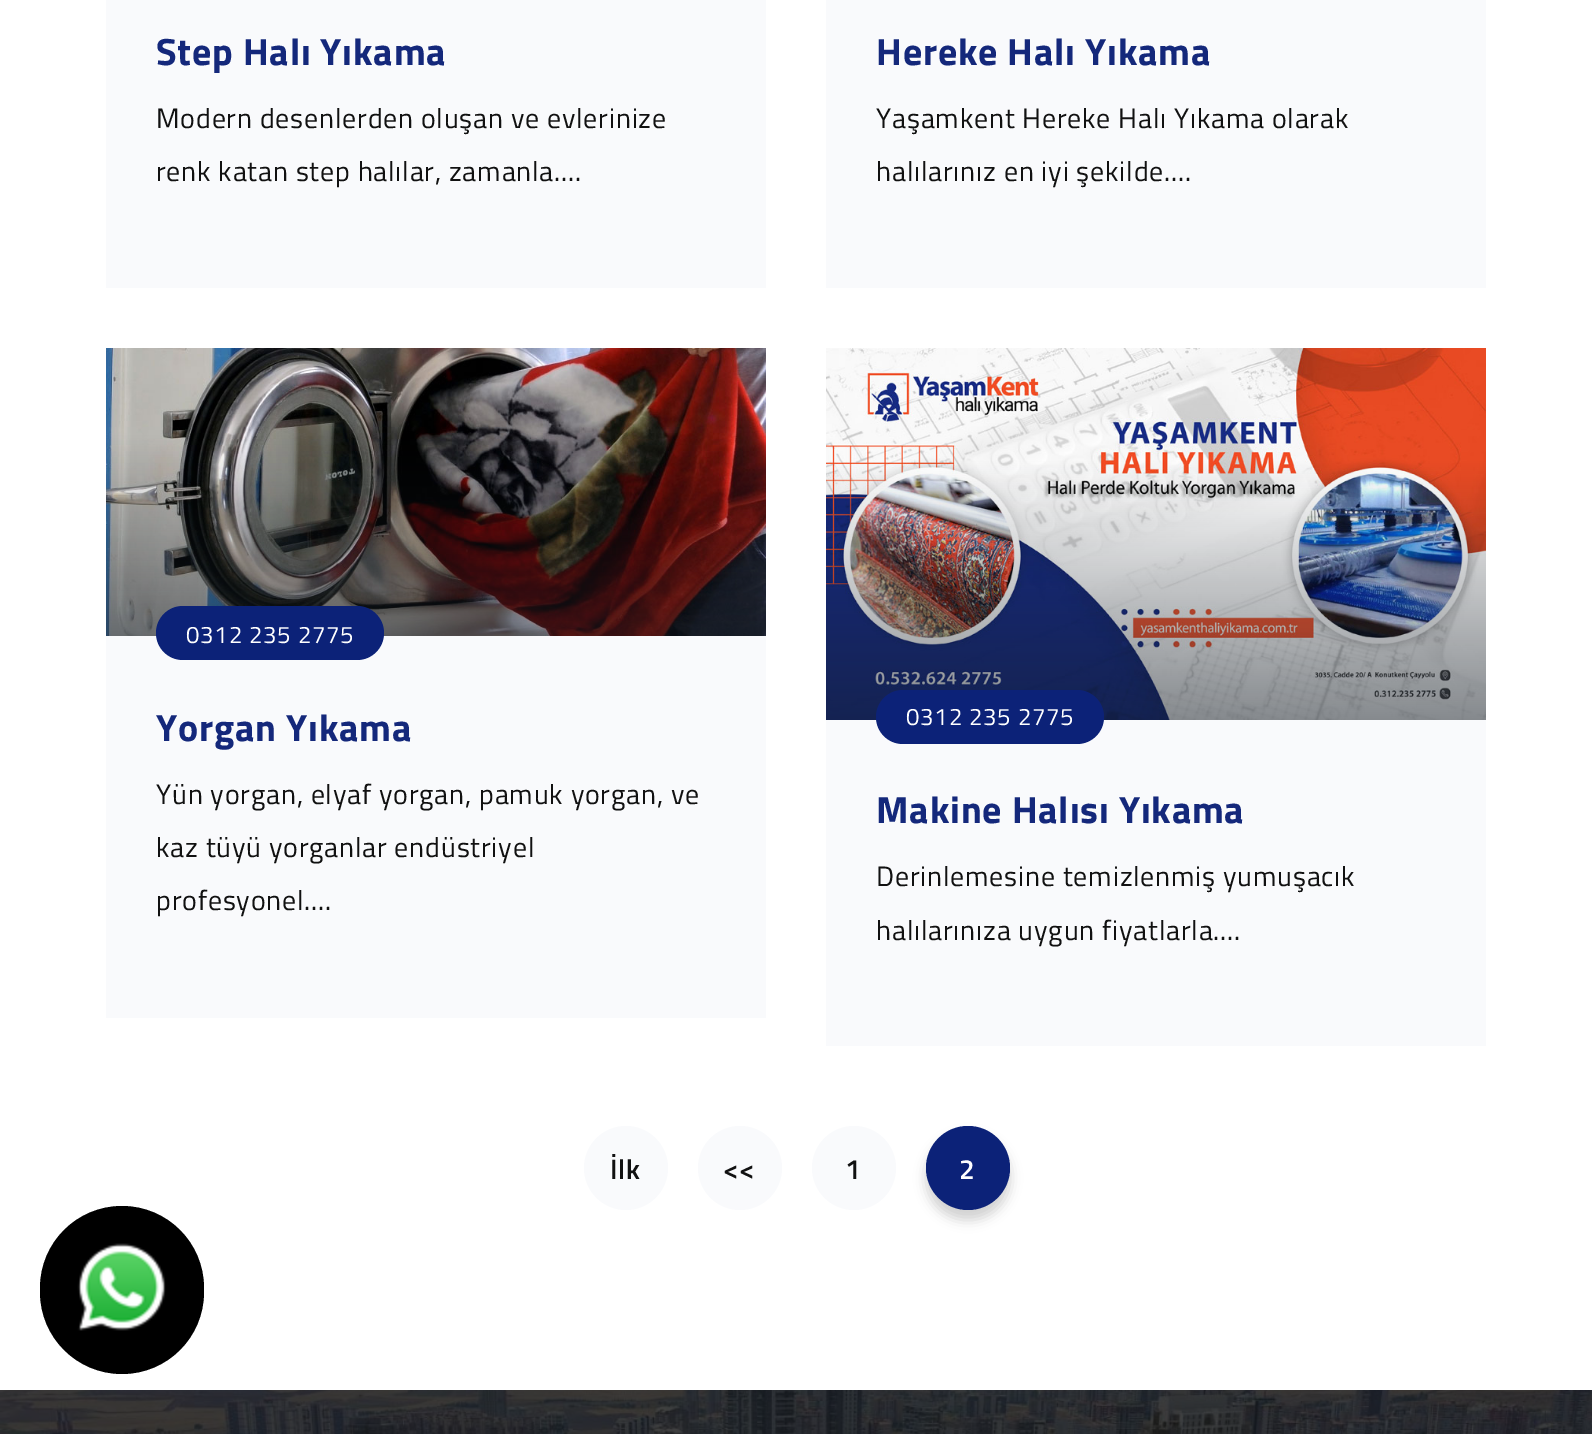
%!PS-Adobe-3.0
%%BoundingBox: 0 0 1592 1434
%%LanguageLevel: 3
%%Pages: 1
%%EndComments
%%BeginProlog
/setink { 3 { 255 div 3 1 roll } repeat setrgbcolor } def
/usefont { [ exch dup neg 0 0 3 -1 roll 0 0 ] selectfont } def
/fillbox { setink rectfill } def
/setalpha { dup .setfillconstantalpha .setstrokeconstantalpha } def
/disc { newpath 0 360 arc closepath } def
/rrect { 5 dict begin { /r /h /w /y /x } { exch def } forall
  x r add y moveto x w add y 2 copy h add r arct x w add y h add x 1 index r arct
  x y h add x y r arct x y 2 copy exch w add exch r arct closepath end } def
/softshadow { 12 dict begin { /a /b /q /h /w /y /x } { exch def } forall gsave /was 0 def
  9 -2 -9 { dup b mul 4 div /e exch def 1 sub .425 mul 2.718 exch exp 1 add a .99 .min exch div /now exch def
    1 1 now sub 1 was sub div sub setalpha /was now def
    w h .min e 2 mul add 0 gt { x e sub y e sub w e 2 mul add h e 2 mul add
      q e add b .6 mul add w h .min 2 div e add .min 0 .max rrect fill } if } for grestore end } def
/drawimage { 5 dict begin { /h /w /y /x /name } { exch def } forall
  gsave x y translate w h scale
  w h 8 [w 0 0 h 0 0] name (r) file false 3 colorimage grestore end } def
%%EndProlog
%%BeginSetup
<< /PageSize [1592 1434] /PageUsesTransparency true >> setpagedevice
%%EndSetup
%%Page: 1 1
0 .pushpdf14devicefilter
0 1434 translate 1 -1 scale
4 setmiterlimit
0 0 1592 1434 255 255 255 fillbox
106 0 660 288 249 250 252 fillbox
/TitilliumWeb-Bold 38 usefont
20 40 123 setink
156 65 moveto 0.8 0 (Step Halı Yıkama) ashow
/TitilliumWeb-Regular 28 usefont
17 17 17 setink
156 128 moveto 0.8 0 (Modern desenlerden oluşan ve evlerinize) ashow
156 181 moveto 0.8 0 (renk katan step halılar, zamanla....) ashow
826 0 660 288 249 250 252 fillbox
/TitilliumWeb-Bold 38 usefont
20 40 123 setink
876 65 moveto 0.8 0 (Hereke Halı Yıkama) ashow
/TitilliumWeb-Regular 28 usefont
17 17 17 setink
876 128 moveto 0.8 0 (Yaşamkent Hereke Halı Yıkama olarak) ashow
876 181 moveto 0.8 0 (halılarınız en iyi şekilde....) ashow
(assets/img1.rgb) 106 348 660 288 drawimage
106 636 660 382 249 250 252 fillbox
12 34 120 setink
156 606 228 54 27 rrect fill
/TitilliumWeb-Regular 24 usefont
255 255 255 setink
186 643 moveto 0.8 0 (0312 235 2775) ashow
/TitilliumWeb-Bold 38 usefont
20 40 123 setink
156 741 moveto 0.8 0 (Yorgan Yıkama) ashow
/TitilliumWeb-Regular 28 usefont
17 17 17 setink
156 804 moveto 0.8 0 (Yün yorgan, elyaf yorgan, pamuk yorgan, ve) ashow
156 857 moveto 0.8 0 (kaz tüyü yorganlar endüstriyel) ashow
156 910 moveto 0.8 0 (profesyonel....) ashow
(assets/img2.rgb) 826 348 660 372 drawimage
826 720 660 326 249 250 252 fillbox
12 34 120 setink
876 690 228 54 27 rrect fill
/TitilliumWeb-Regular 24 usefont
255 255 255 setink
906 725 moveto 0.8 0 (0312 235 2775) ashow
/TitilliumWeb-Bold 38 usefont
20 40 123 setink
876 823 moveto 0.8 0 (Makine Halısı Yıkama) ashow
/TitilliumWeb-Regular 28 usefont
17 17 17 setink
876 886 moveto 0.8 0 (Derinlemesine temizlenmiş yumuşacık) ashow
876 940 moveto 0.8 0 (halılarınıza uygun fiyatlarla....) ashow
249 250 252 setink
626 1168 42 disc fill
/TitilliumWeb-SemiBold 28 usefont
17 17 17 setink
610 1179 moveto 0.8 0 (İlk) ashow
249 250 252 setink
740 1168 42 disc fill
17 17 17 setink
723 1179 moveto 0.8 0 (<<) ashow
249 250 252 setink
854 1168 42 disc fill
17 17 17 setink
845 1179 moveto 0.8 0 (1) ashow
0 0 0 setink
926 1136 84 84 42 6 0.18 softshadow
12 34 120 setink
968 1168 42 disc fill
255 255 255 setink
959 1179 moveto 0.8 0 (2) ashow
0 0 0 setink
40 1206 164 168 82 rrect fill
(assets/img3.rgb) 77 1243 89 88 drawimage
(assets/img4.rgb) 0 1390 1592 44 drawimage
.poppdf14devicefilter showpage
%%EOF
